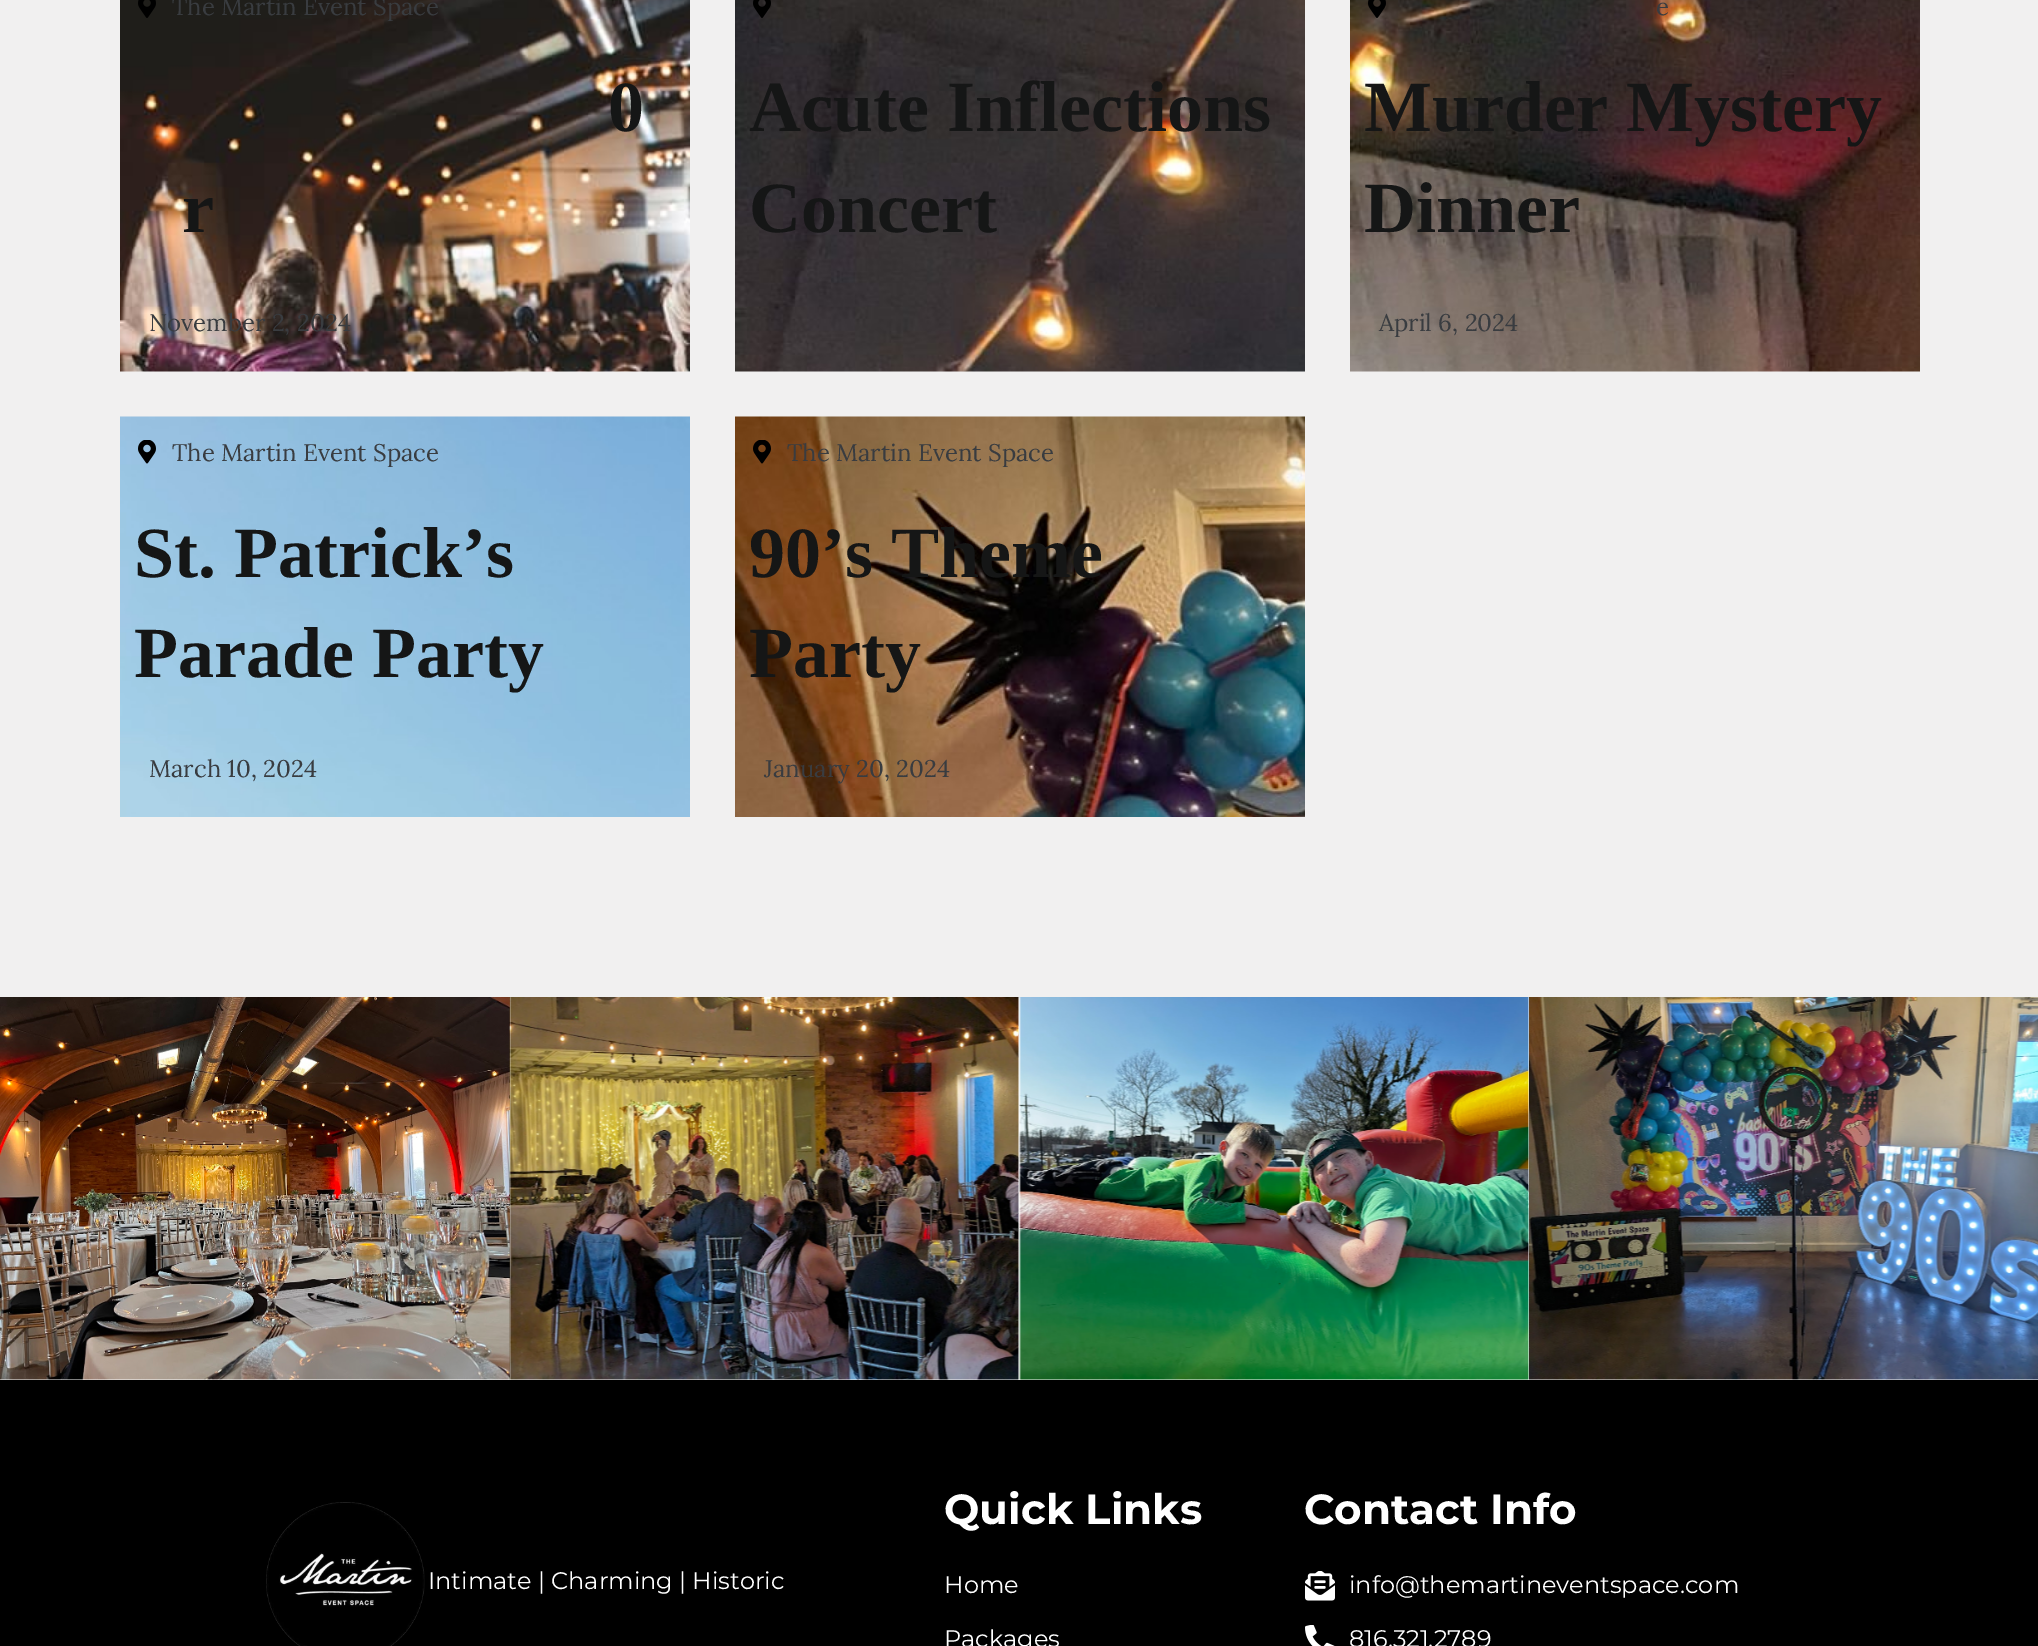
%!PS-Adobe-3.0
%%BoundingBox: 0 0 2038 1646
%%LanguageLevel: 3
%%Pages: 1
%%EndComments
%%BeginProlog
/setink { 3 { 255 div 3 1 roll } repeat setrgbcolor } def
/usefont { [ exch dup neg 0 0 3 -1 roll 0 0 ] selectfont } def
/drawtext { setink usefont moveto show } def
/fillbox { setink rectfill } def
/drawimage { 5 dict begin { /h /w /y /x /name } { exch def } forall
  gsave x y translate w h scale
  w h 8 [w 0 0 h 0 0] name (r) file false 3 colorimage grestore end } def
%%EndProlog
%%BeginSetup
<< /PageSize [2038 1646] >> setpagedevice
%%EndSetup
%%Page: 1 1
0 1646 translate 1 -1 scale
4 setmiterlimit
0 0 2038 1646 255 255 255 fillbox
0 0 2038 998 241 240 240 fillbox
(assets/img1.rgb) 120 0 570 372 drawimage
(assets/img2.rgb) 138 0 18 18 drawimage
(The Martin Event Space) 172 15 /Lora-Regular 24 57 60 64 drawtext
(0) 608 131 /LiberationSerif-Bold 72 21 22 22 drawtext
(r) 182 232 /LiberationSerif-Bold 72 21 22 22 drawtext
(November 2, 2024) 149 331 /Lora-Regular 24 57 60 64 drawtext
(assets/img3.rgb) 735 0 570 372 drawimage
(assets/img4.rgb) 753 0 18 18 drawimage
(Acute Inflections) 749 131 /LiberationSerif-Bold 72 21 22 22 drawtext
(Concert) 749 232 /LiberationSerif-Bold 72 21 22 22 drawtext
(assets/img5.rgb) 1350 0 570 372 drawimage
(assets/img6.rgb) 1368 0 18 18 drawimage
(e) 1656 15 /Lora-Regular 24 57 60 64 drawtext
(Murder Mystery) 1364 131 /LiberationSerif-Bold 72 21 22 22 drawtext
(Dinner) 1364 232 /LiberationSerif-Bold 72 21 22 22 drawtext
(April 6, 2024) 1379 331 /Lora-Regular 24 57 60 64 drawtext
(assets/img7.rgb) 120 416 570 401 drawimage
(assets/img8.rgb) 138 440 18 24 drawimage
(The Martin Event Space) 172 461 /Lora-Regular 24 57 60 64 drawtext
(St. Patrick’s) 134 577 /LiberationSerif-Bold 72 21 22 22 drawtext
(Parade Party) 134 677 /LiberationSerif-Bold 72 21 22 22 drawtext
(March 10, 2024) 149 777 /Lora-Regular 24 57 60 64 drawtext
(assets/img9.rgb) 735 416 570 401 drawimage
(assets/img10.rgb) 753 440 18 24 drawimage
(The Martin Event Space) 787 461 /Lora-Regular 24 57 60 64 drawtext
(90’s Theme) 749 577 /LiberationSerif-Bold 72 21 22 22 drawtext
(Party) 749 677 /LiberationSerif-Bold 72 21 22 22 drawtext
(January 20, 2024) 764 777 /Lora-Regular 24 57 60 64 drawtext
(assets/img11.rgb) 0 997 510 383 drawimage
(assets/img12.rgb) 509 997 510 383 drawimage
(assets/img13.rgb) 1019 997 510 383 drawimage
(assets/img14.rgb) 1529 997 509 383 drawimage
0 1380 2038 266 0 0 0 fillbox
(assets/img15.rgb) 266 1502 159 144 drawimage
(Intimate | Charming | Historic) 428 1589 /Montserrat-Regular 24 255 255 255 drawtext
(Quick Links) 944 1524 /Montserrat-Bold 42 255 255 255 drawtext
(Home) 944 1593 /Montserrat-Regular 24 255 255 255 drawtext
(Packages) 944 1647 /Montserrat-Regular 24 255 255 255 drawtext
(Contact Info) 1304 1524 /Montserrat-Bold 42 255 255 255 drawtext
(assets/img16.rgb) 1305 1571 30 30 drawimage
(info@themartineventspace.com) 1349 1593 /Montserrat-Regular 24 255 255 255 drawtext
(assets/img17.rgb) 1305 1625 30 21 drawimage
(816.321.2789) 1349 1647 /Montserrat-Regular 24 255 255 255 drawtext
showpage
%%EOF
